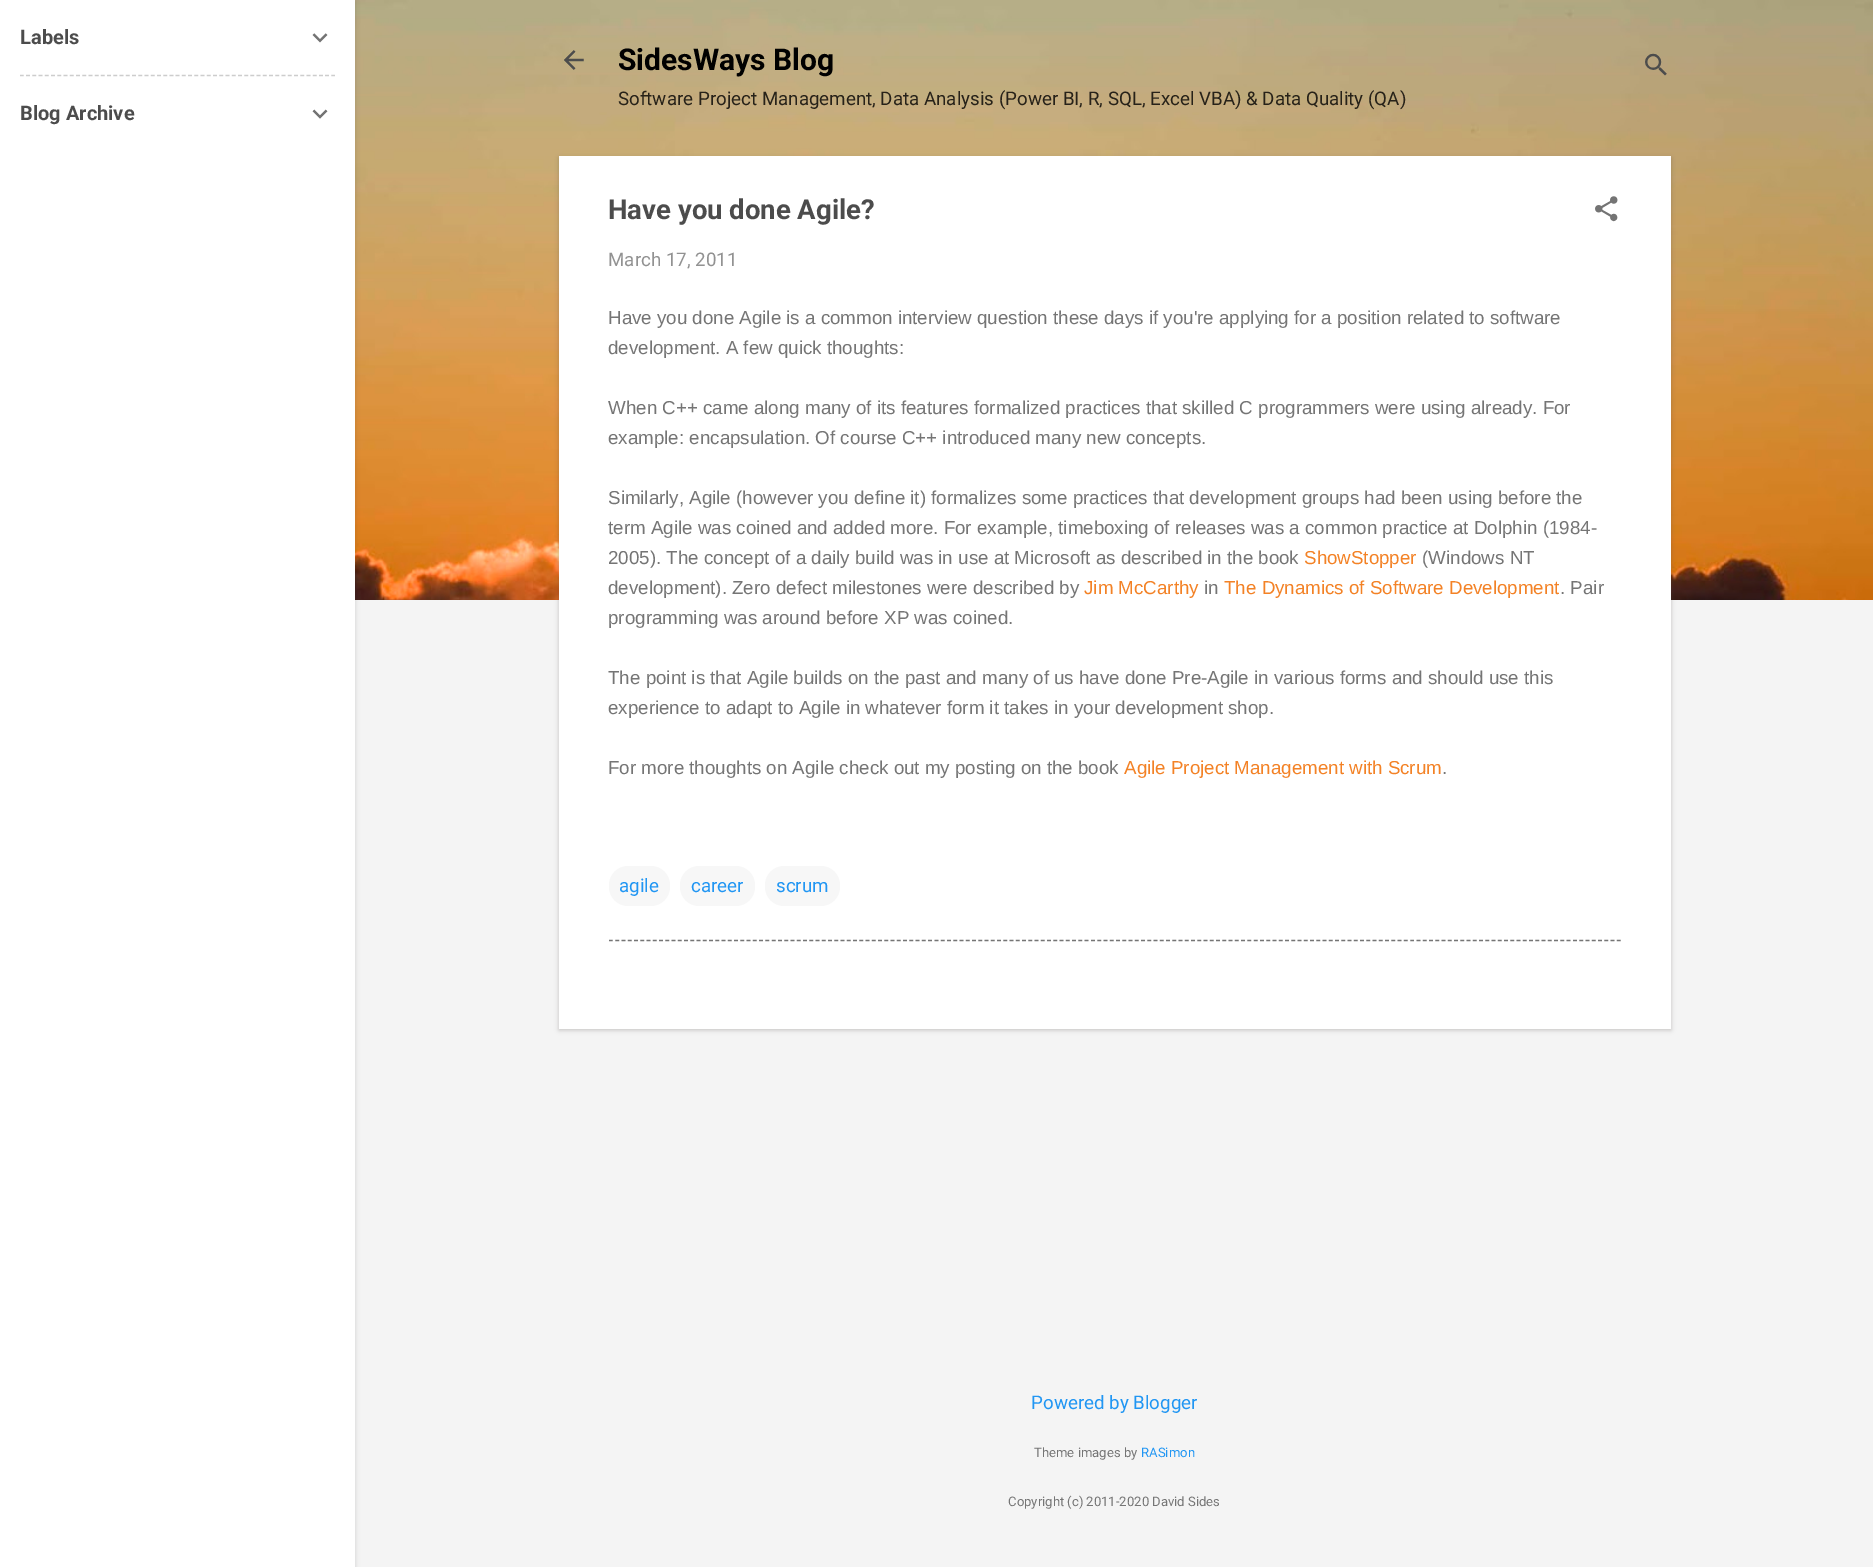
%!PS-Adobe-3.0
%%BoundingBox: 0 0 1873 1567
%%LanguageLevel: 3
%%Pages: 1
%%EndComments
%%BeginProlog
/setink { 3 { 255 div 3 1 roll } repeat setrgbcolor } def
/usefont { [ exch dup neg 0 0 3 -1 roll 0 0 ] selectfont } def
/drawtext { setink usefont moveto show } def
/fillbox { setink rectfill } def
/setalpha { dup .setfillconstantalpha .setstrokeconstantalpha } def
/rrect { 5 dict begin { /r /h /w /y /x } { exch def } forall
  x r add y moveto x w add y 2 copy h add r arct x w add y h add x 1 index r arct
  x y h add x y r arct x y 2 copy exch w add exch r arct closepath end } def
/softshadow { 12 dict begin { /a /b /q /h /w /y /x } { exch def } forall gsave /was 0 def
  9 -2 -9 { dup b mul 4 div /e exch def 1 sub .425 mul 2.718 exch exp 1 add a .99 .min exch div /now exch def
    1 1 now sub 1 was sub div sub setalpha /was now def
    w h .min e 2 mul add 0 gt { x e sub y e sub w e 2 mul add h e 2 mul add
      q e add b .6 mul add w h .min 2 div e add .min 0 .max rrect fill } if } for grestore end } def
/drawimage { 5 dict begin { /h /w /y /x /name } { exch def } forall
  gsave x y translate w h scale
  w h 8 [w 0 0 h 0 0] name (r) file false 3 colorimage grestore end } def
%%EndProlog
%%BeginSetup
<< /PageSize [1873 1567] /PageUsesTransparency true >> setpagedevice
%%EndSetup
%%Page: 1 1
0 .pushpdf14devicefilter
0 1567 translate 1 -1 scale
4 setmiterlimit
0 0 1873 1567 244 244 244 fillbox
(assets/img3.rgb) 355 0 1518 600 drawimage
0 0 0 setink
1 1 355 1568 0 2 0.1 softshadow
0 0 355 1567 255 255 255 fillbox
(Labels) 20 44 /Roboto-Bold 20 76 76 76 drawtext
(assets/img1.rgb) 312 33 16 10 drawimage
205 205 205 setink
1.2 setlinewidth
[3.75 2.48] 0 setdash
20 75.5 moveto 335 75.5 lineto stroke
(Blog Archive) 20 120 /Roboto-Bold 20 76 76 76 drawtext
(assets/img2.rgb) 312 109 16 10 drawimage
(assets/img4.rgb) 564 50 20 20 drawimage
(SidesWays Blog) 618 70 /Roboto-Bold 30 0 0 0 drawtext
(Software Project Management, Data Analysis \(Power BI, R, SQL, Excel VBA\) & Data Quality \(QA\)) 618 105 /Roboto-Regular 18.75 39 34 25 drawtext
(assets/img5.rgb) 1645 53 22 23 drawimage
78 73 70 setink
559 158 1112 872 0 2.5 0.3 softshadow
559 156 1112 873 255 255 255 fillbox
(Have you done Agile?) 608 219 /Roboto-Bold 27.5 76 76 76 drawtext
(assets/img6.rgb) 1595 196 23 26 drawimage
(March 17, 2011) 608 266 /Roboto-Regular 18.75 146 146 146 drawtext
(Have you done Agile is a common interview question these days if you're applying for a position related to software) 608 324 /LiberationSans-Regular 18.75 117 117 117 drawtext
(development. A few quick thoughts:) 608 354 /LiberationSans-Regular 18.75 117 117 117 drawtext
(When C++ came along many of its features formalized practices that skilled C programmers were using already. For) 608 414 /LiberationSans-Regular 18.75 117 117 117 drawtext
(example: encapsulation. Of course C++ introduced many new concepts.) 608 444 /LiberationSans-Regular 18.75 117 117 117 drawtext
(Similarly, Agile \(however you define it\) formalizes some practices that development groups had been using before the) 608 504 /LiberationSans-Regular 18.75 117 117 117 drawtext
(term Agile was coined and added more. For example, timeboxing of releases was a common practice at Dolphin \(1984-) 608 534 /LiberationSans-Regular 18.75 117 117 117 drawtext
(2005\). The concept of a daily build was in use at Microsoft as described in the book) 608 564 /LiberationSans-Regular 18.75 117 117 117 drawtext
(ShowStopper) 1304 564 /LiberationSans-Regular 18.75 243 130 38 drawtext
(\(Windows NT) 1422 564 /LiberationSans-Regular 18.75 117 117 117 drawtext
(development\). Zero defect milestones were described by) 608 594 /LiberationSans-Regular 18.75 117 117 117 drawtext
(Jim McCarthy) 1084 594 /LiberationSans-Regular 18.75 243 130 38 drawtext
(in) 1204 594 /LiberationSans-Regular 18.75 117 117 117 drawtext
(The Dynamics of Software Development) 1224 594 /LiberationSans-Regular 18.75 243 130 38 drawtext
(. Pair) 1560 594 /LiberationSans-Regular 18.75 117 117 117 drawtext
(programming was around before XP was coined.) 608 624 /LiberationSans-Regular 18.75 117 117 117 drawtext
(The point is that Agile builds on the past and many of us have done Pre-Agile in various forms and should use this) 608 684 /LiberationSans-Regular 18.75 117 117 117 drawtext
(experience to adapt to Agile in whatever form it takes in your development shop.) 608 714 /LiberationSans-Regular 18.75 117 117 117 drawtext
(For more thoughts on Agile check out my posting on the book) 608 774 /LiberationSans-Regular 18.75 117 117 117 drawtext
(Agile Project Management with Scrum) 1124 774 /LiberationSans-Regular 18.75 243 130 38 drawtext
(.) 1442 774 /LiberationSans-Regular 18.75 117 117 117 drawtext
247 247 247 setink
609 866 61 40 19 rrect fill
(agile) 619 892 /Roboto-Regular 18.75 33 150 243 drawtext
247 247 247 setink
680 866 75 40 19 rrect fill
(career) 691 892 /Roboto-Regular 18.75 33 150 243 drawtext
247 247 247 setink
765 866 75 40 19 rrect fill
(scrum) 776 892 /Roboto-Regular 18.75 33 150 243 drawtext
117 117 117 setink
[3.75 2.51] 0 setdash
609 940.5 moveto 1621 940.5 lineto stroke
(Powered by Blogger) 1031 1409 /Roboto-Regular 18.75 33 150 243 drawtext
(Theme images by) 1034 1457 /Roboto-Regular 13.1 117 117 117 drawtext
(RASimon) 1141 1457 /Roboto-Regular 13.1 33 150 243 drawtext
(Copyright \(c\) 2011-2020 David Sides) 1008 1506 /Roboto-Regular 13.1 117 117 117 drawtext
.poppdf14devicefilter showpage
%%EOF
